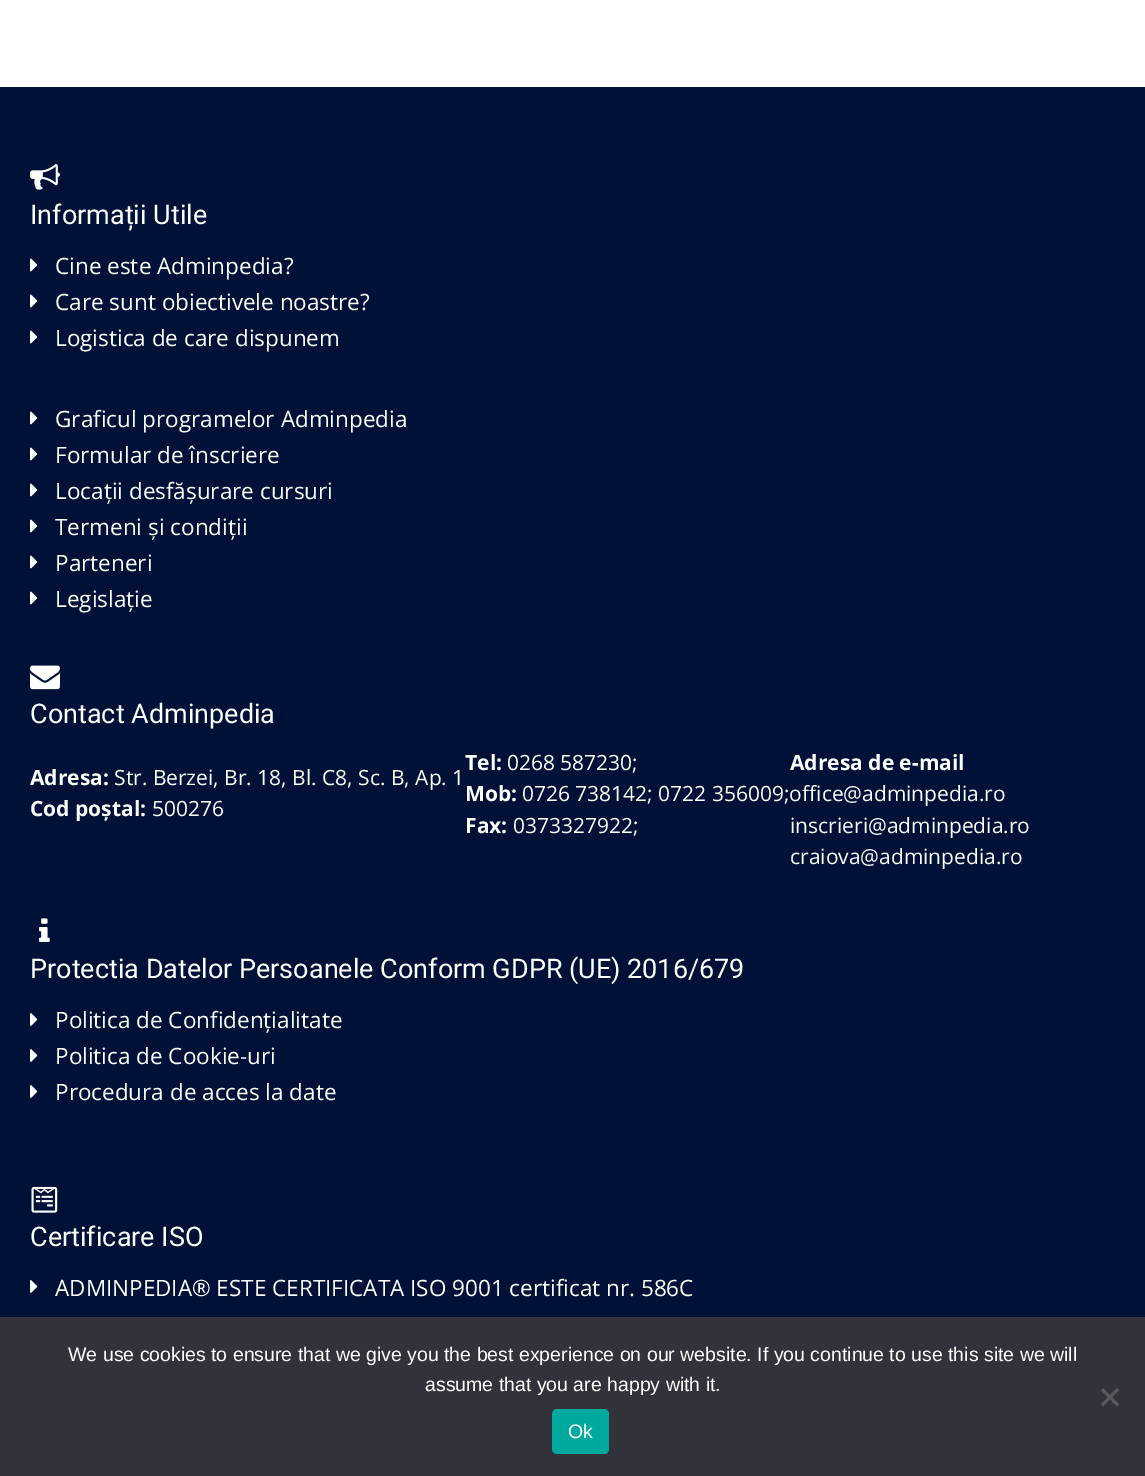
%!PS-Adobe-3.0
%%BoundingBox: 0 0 1145 1476
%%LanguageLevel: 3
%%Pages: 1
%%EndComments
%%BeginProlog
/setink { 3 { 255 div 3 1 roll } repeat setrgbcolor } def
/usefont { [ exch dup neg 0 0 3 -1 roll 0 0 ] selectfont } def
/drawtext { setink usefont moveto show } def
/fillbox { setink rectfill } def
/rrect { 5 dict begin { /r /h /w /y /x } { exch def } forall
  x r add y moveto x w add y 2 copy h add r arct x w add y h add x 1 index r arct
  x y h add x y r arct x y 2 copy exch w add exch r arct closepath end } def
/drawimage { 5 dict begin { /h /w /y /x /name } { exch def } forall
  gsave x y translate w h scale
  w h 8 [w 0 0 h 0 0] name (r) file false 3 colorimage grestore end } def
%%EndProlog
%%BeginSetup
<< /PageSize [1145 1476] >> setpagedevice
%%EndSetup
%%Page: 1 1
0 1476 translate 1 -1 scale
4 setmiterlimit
0 0 1145 1476 255 255 255 fillbox
0 87 1145 1230 0 17 56 fillbox
(assets/img1.rgb) 30 164 30 26 drawimage
(Informații Utile) 30 224 /Roboto-Regular 27 255 255 255 drawtext
(assets/img2.rgb) 30 258 8 14 drawimage
(Cine este Adminpedia?) 55 274 /OpenSans-Regular 22.5 255 255 255 drawtext
(assets/img2.rgb) 30 294 8 14 drawimage
(Care sunt obiectivele noastre?) 55 310 /OpenSans-Regular 22.5 255 255 255 drawtext
(assets/img2.rgb) 30 330 8 14 drawimage
(Logistica de care dispunem) 55 346 /OpenSans-Regular 22.5 255 255 255 drawtext
(assets/img2.rgb) 30 411 8 14 drawimage
(Graficul programelor Adminpedia) 55 427 /OpenSans-Regular 22.5 255 255 255 drawtext
(assets/img2.rgb) 30 447 8 14 drawimage
(Formular de înscriere) 55 463 /OpenSans-Regular 22.5 255 255 255 drawtext
(assets/img2.rgb) 30 483 8 14 drawimage
(Locații desfășurare cursuri) 55 499 /OpenSans-Regular 22.5 255 255 255 drawtext
(assets/img2.rgb) 30 519 8 14 drawimage
(Termeni și condiții) 55 535 /OpenSans-Regular 22.5 255 255 255 drawtext
(assets/img2.rgb) 30 555 8 14 drawimage
(Parteneri) 55 571 /OpenSans-Regular 22.5 255 255 255 drawtext
(assets/img2.rgb) 30 591 8 14 drawimage
(Legislație) 55 607 /OpenSans-Regular 22.5 255 255 255 drawtext
(assets/img3.rgb) 30 665 30 25 drawimage
(Contact Adminpedia) 30 723 /Roboto-Regular 27 255 255 255 drawtext
(Tel:) 465 770 /OpenSans-Bold 21 255 255 255 drawtext
(0268 587230;) 507 770 /OpenSans-Regular 21 255 255 255 drawtext
(Mob:) 465 801 /OpenSans-Bold 21 255 255 255 drawtext
(0726 738142; 0722 356009;office@adminpedia.ro) 522 801 /OpenSans-Regular 21 255 255 255 drawtext
(Fax:) 465 833 /OpenSans-Bold 21 255 255 255 drawtext
(0373327922;) 513 833 /OpenSans-Regular 21 255 255 255 drawtext
(Adresa:) 30 785 /OpenSans-Bold 21 255 255 255 drawtext
(Str. Berzei, Br. 18, Bl. C8, Sc. B, Ap. 1) 114 785 /OpenSans-Regular 21 255 255 255 drawtext
(Cod poștal:) 30 816 /OpenSans-Bold 21 255 255 255 drawtext
(500276) 152 816 /OpenSans-Regular 21 255 255 255 drawtext
(Adresa de e-mail) 790 770 /OpenSans-Bold 21 255 255 255 drawtext
(inscrieri@adminpedia.ro) 790 833 /OpenSans-Regular 21 255 255 255 drawtext
(craiova@adminpedia.ro) 790 864 /OpenSans-Regular 21 255 255 255 drawtext
(assets/img4.rgb) 39 918 11 24 drawimage
(Protectia Datelor Persoanele Conform GDPR \(UE\) 2016/679) 30 978 /Roboto-Regular 27 255 255 255 drawtext
(assets/img5.rgb) 30 1013 8 13 drawimage
(Politica de Confidențialitate) 55 1028 /OpenSans-Regular 22.5 255 255 255 drawtext
(assets/img5.rgb) 30 1049 8 13 drawimage
(Politica de Cookie-uri) 55 1064 /OpenSans-Regular 22.5 255 255 255 drawtext
(assets/img5.rgb) 30 1085 8 13 drawimage
(Procedura de acces la date) 55 1100 /OpenSans-Regular 22.5 255 255 255 drawtext
(assets/img6.rgb) 31 1186 27 27 drawimage
(Certificare ISO) 30 1246 /Roboto-Regular 27 255 255 255 drawtext
(assets/img5.rgb) 30 1280 8 13 drawimage
(ADMINPEDIA® ESTE CERTIFICATA ISO 9001 certificat nr. 586C) 55 1296 /OpenSans-Regular 22.5 255 255 255 drawtext
0 1317 1145 159 50 50 58 fillbox
(We use cookies to ensure that we give you the best experience on our website. If you continue to use this site we will) 68 1361 /LiberationSans-Regular 19.5 255 255 255 drawtext
(assume that you are happy with it.) 425 1391 /LiberationSans-Regular 19.5 255 255 255 drawtext
89 89 93 setink
1117 1388 moveto 1119 1390.5 lineto 1103 1406.5 lineto 1101 1404 lineto closepath fill
1101 1390.5 moveto 1103 1388 lineto 1119 1404 lineto 1117 1406.5 lineto closepath fill
0 169 157 setink
552 1409 57 45 5 rrect fill
(Ok) 568 1438 /LiberationSans-Regular 19.5 255 255 255 drawtext
showpage
%%EOF
